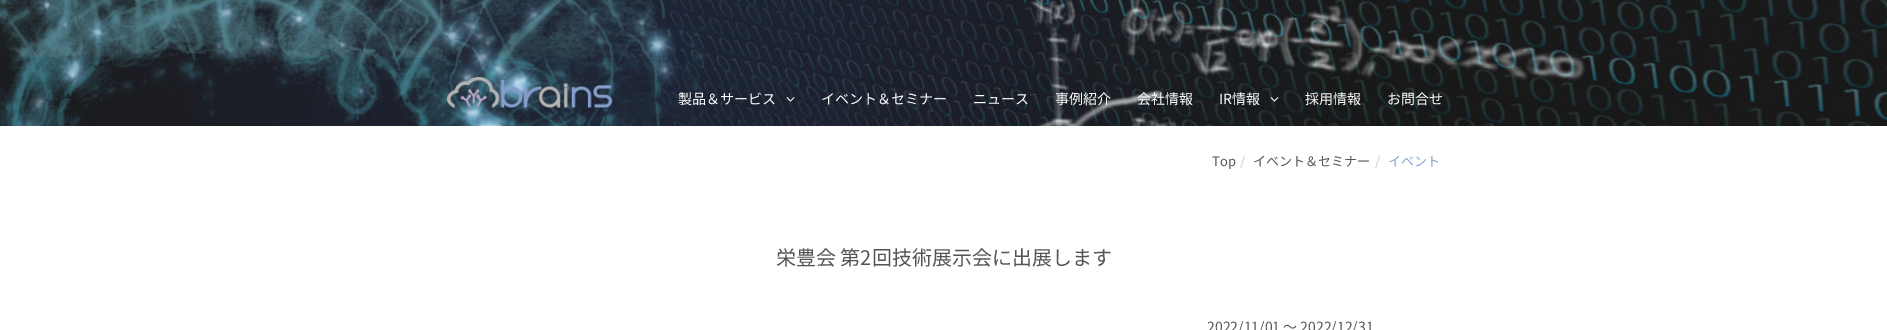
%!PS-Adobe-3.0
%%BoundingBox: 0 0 1887 330
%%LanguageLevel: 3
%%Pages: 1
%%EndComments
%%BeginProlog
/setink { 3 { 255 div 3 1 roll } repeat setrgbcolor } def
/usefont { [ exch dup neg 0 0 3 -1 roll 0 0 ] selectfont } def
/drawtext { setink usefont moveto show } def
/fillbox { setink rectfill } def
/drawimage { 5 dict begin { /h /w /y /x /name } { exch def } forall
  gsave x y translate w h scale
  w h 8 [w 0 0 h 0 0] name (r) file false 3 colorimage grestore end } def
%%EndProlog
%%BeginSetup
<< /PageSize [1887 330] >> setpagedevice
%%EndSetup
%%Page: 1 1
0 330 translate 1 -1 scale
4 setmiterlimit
0 0 1887 330 255 255 255 fillbox
(assets/img1.rgb) 0 0 1887 126 drawimage
(assets/img2.rgb) 447 77 165 31 drawimage
(製品＆サービス) 678 104 /NotoSansJP-Regular 14 255 255 255 drawtext
(assets/img3.rgb) 786 97 9 5 drawimage
(イベント＆セミナー) 821 104 /NotoSansJP-Regular 14 255 255 255 drawtext
(ニュース) 973 104 /NotoSansJP-Regular 14 255 255 255 drawtext
(事例紹介) 1055 104 /NotoSansJP-Regular 14 255 255 255 drawtext
(会社情報) 1137 104 /NotoSansJP-Regular 14 255 255 255 drawtext
(IR情報) 1219 104 /NotoSansJP-Regular 14 255 255 255 drawtext
(assets/img4.rgb) 1270 97 9 5 drawimage
(採用情報) 1305 104 /NotoSansJP-Regular 14 255 255 255 drawtext
(お問合せ) 1387 104 /NotoSansJP-Regular 14 255 255 255 drawtext
(Top) 1212 166 /NotoSansJP-Regular 13 85 85 85 drawtext
(/) 1240 166 /NotoSansJP-Regular 13 204 204 204 drawtext
(イベント＆セミナー) 1253 166 /NotoSansJP-Regular 13 85 85 85 drawtext
(/) 1375 166 /NotoSansJP-Regular 13 204 204 204 drawtext
(イベント) 1388 166 /NotoSansJP-Regular 13 137 163 212 drawtext
(栄豊会 第2回技術展示会に出展します) 776 265 /NotoSansJP-Regular 20 85 85 85 drawtext
(2022/11/01 ～ 2022/12/31) 1207 332 /NotoSansJP-Regular 14 85 85 85 drawtext
showpage
%%EOF
